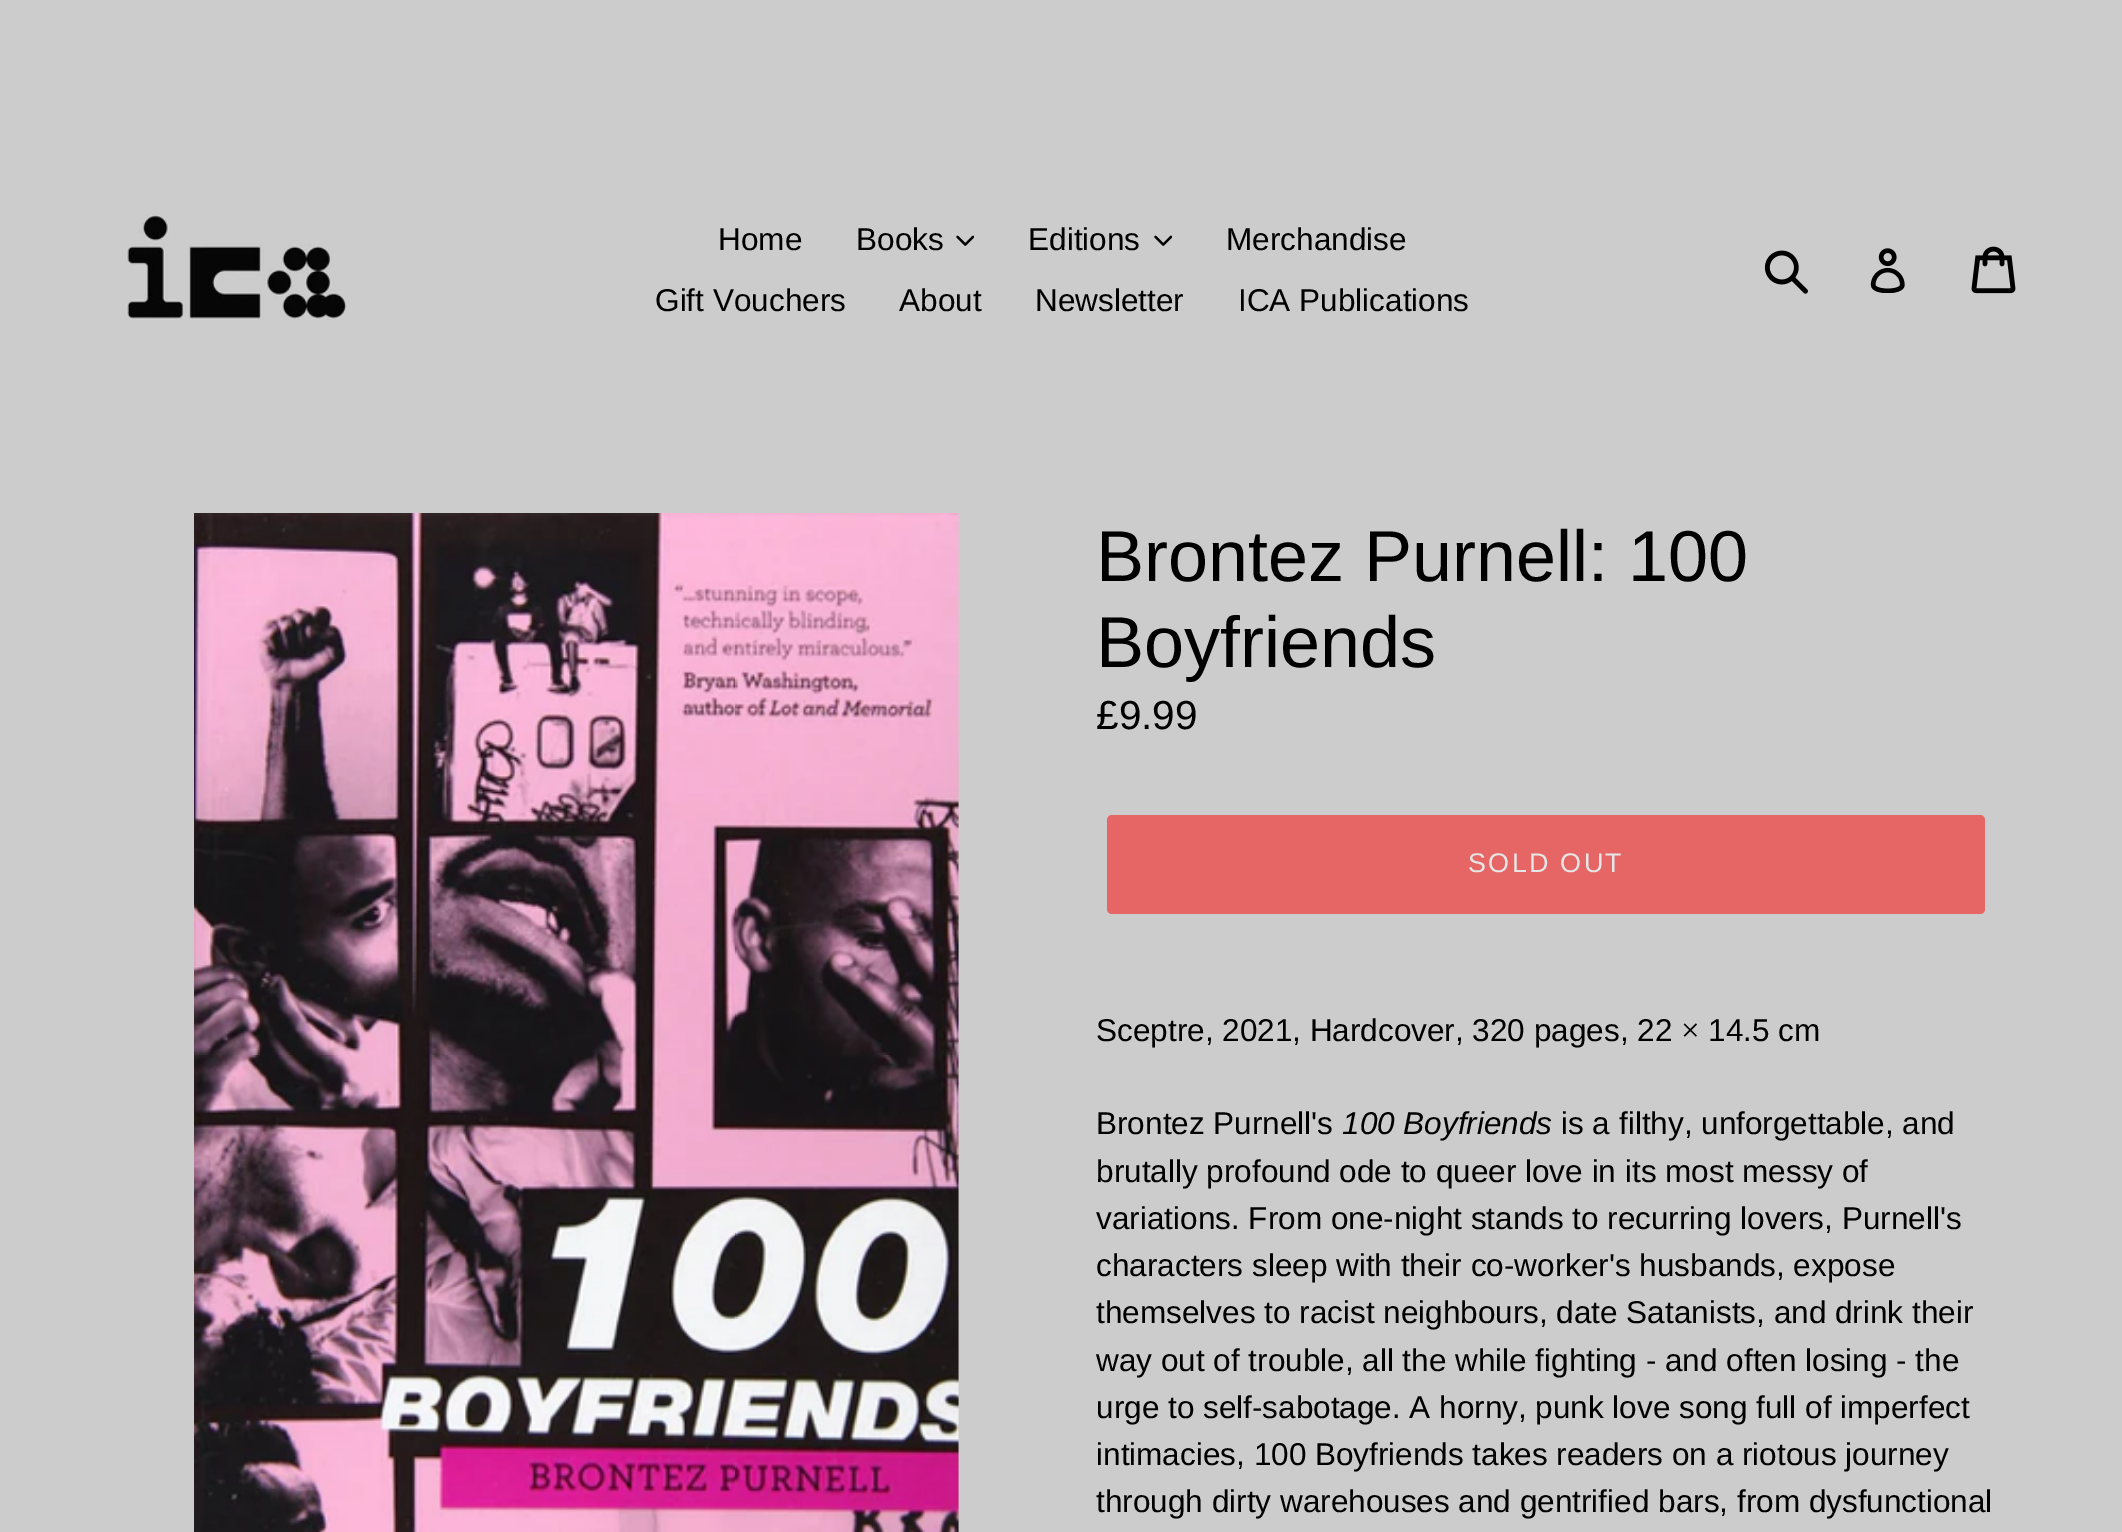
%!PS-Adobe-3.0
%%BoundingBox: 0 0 2122 1532
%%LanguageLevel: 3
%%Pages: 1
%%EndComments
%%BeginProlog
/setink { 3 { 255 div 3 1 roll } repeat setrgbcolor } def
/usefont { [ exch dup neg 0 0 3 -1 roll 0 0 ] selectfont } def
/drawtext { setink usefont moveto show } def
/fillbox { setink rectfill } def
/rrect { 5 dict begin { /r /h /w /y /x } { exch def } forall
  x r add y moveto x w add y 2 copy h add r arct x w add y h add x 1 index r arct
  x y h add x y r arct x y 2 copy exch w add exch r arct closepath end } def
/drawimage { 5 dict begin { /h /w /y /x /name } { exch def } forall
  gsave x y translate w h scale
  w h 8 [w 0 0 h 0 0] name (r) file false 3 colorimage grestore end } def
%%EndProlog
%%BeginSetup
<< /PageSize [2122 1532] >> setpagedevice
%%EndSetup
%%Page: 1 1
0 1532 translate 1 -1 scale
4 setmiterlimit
0 0 2122 1532 204 204 204 fillbox
(assets/img1.rgb) 125 215 222 105 drawimage
(Home) 718 250 /LiberationSans-Regular 31.5 0 0 0 drawtext
(Books) 856 250 /LiberationSans-Regular 31.5 0 0 0 drawtext
(assets/img2.rgb) 956 235 18 11 drawimage
(Editions) 1028 250 /LiberationSans-Regular 31.5 0 0 0 drawtext
(assets/img2.rgb) 1154 235 18 11 drawimage
(Merchandise) 1226 250 /LiberationSans-Regular 31.5 0 0 0 drawtext
(Gift Vouchers) 655 311 /LiberationSans-Regular 31.5 0 0 0 drawtext
(About) 899 311 /LiberationSans-Regular 31.5 0 0 0 drawtext
(Newsletter) 1035 311 /LiberationSans-Regular 31.5 0 0 0 drawtext
(ICA Publications) 1238 311 /LiberationSans-Regular 31.5 0 0 0 drawtext
(assets/img3.rgb) 1764 250 44 44 drawimage
(assets/img4.rgb) 1870 248 35 45 drawimage
(assets/img5.rgb) 1971 246 45 48 drawimage
(assets/img6.rgb) 194 513 765 1019 drawimage
(Brontez Purnell: 100) 1096 581 /LiberationSans-Regular 72 0 0 0 drawtext
(Boyfriends) 1096 667 /LiberationSans-Regular 72 0 0 0 drawtext
(£9.99) 1096 729 /LiberationSans-Regular 40.5 0 0 0 drawtext
230 102 102 setink
1107 815 878 99 5 rrect fill
/LiberationSans-Regular 27 usefont
230 230 230 setink
1468 872 moveto 2.25 0 (SOLD OUT) ashow
(Sceptre, 2021, Hardcover, 320 pages, 22) 1096 1041 /LiberationSans-Regular 31.5 0 0 0 drawtext
(×) 1681 1041 /LiberationSerif-Regular 33 0 0 0 drawtext
(14.5 cm) 1708 1041 /LiberationSans-Regular 31.5 0 0 0 drawtext
(Brontez Purnell's) 1096 1134 /LiberationSans-Regular 31.5 0 0 0 drawtext
(100 Boyfriends) 1342 1134 /LiberationSans-Italic 31.5 0 0 0 drawtext
(is a filthy, unforgettable, and) 1561 1134 /LiberationSans-Regular 31.5 0 0 0 drawtext
(brutally profound ode to queer love in its most messy of) 1096 1182 /LiberationSans-Regular 31.5 0 0 0 drawtext
(variations. From one-night stands to recurring lovers, Purnell's) 1096 1229 /LiberationSans-Regular 31.5 0 0 0 drawtext
(characters sleep with their co-worker's husbands, expose) 1096 1276 /LiberationSans-Regular 31.5 0 0 0 drawtext
(themselves to racist neighbours, date Satanists, and drink their) 1096 1323 /LiberationSans-Regular 31.5 0 0 0 drawtext
(way out of trouble, all the while fighting - and often losing - the) 1096 1371 /LiberationSans-Regular 31.5 0 0 0 drawtext
(urge to self-sabotage. A horny, punk love song full of imperfect) 1096 1418 /LiberationSans-Regular 31.5 0 0 0 drawtext
(intimacies, 100 Boyfriends takes readers on a riotous journey) 1096 1465 /LiberationSans-Regular 31.5 0 0 0 drawtext
(through dirty warehouses and gentrified bars, from dysfunctional) 1096 1512 /LiberationSans-Regular 31.5 0 0 0 drawtext
showpage
%%EOF
